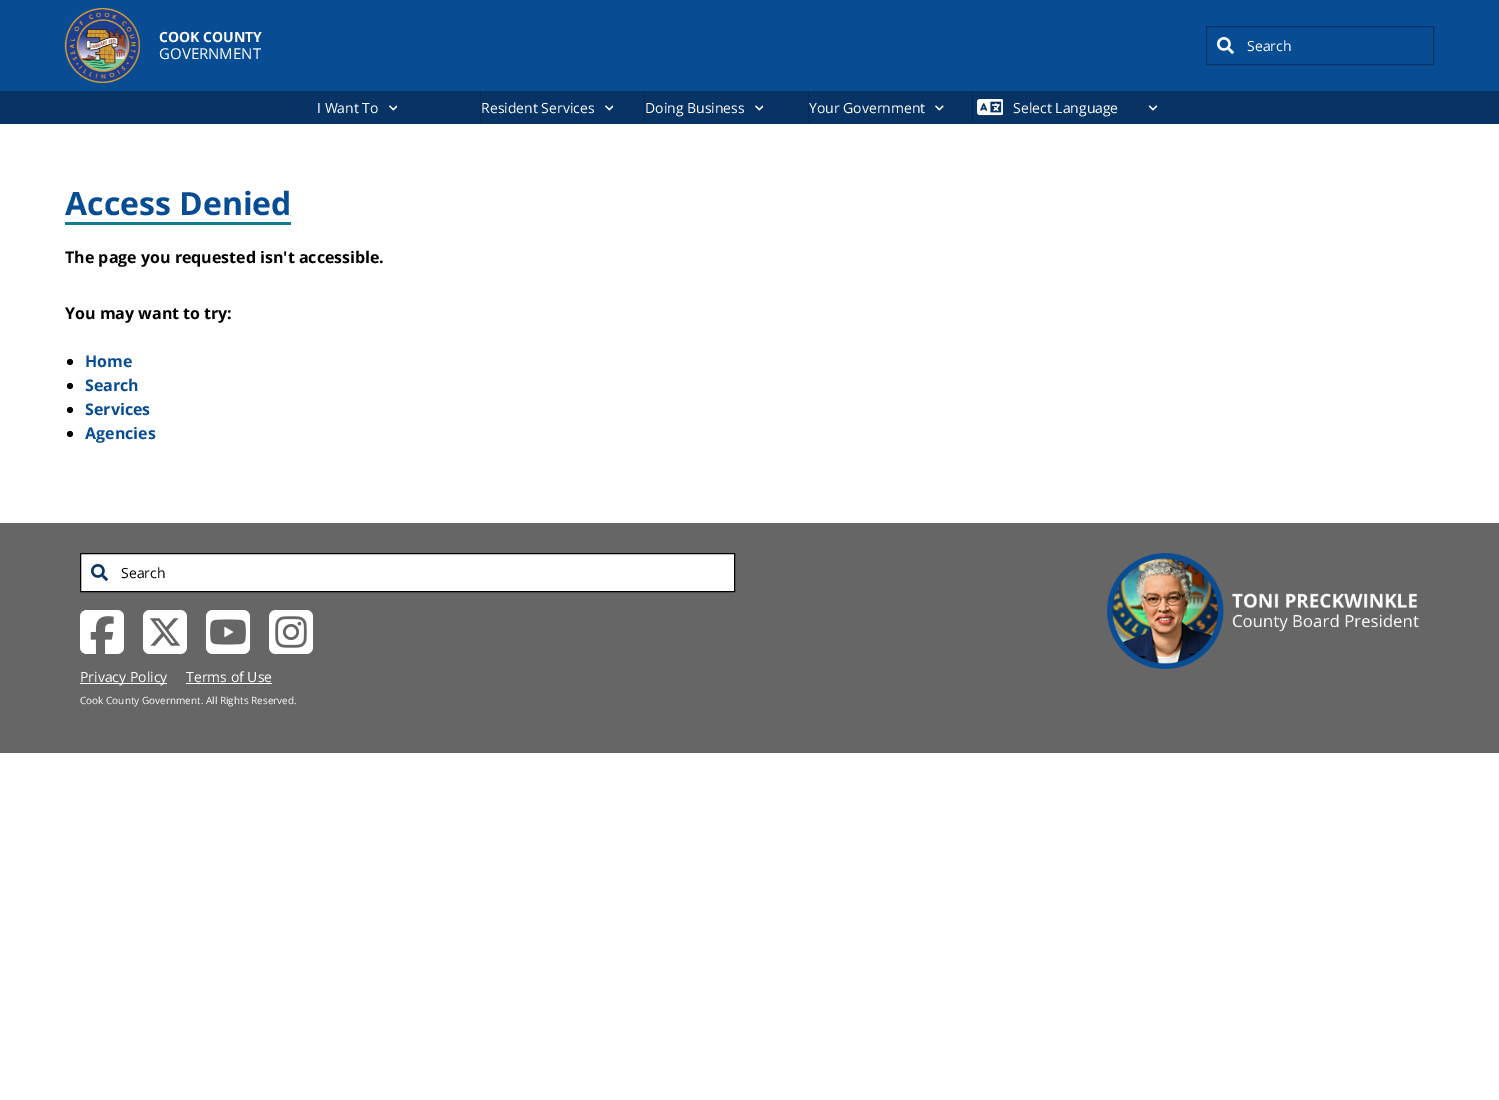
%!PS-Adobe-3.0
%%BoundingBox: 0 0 1499 1100
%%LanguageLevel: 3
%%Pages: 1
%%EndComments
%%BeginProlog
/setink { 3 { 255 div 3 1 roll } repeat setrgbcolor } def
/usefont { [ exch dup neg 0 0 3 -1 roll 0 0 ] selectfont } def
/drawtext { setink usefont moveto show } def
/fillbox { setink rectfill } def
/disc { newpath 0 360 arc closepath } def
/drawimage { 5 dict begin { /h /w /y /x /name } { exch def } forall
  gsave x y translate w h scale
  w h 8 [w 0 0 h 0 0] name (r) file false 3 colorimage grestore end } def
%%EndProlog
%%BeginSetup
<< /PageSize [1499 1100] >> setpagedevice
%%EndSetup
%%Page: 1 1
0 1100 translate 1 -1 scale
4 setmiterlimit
0 0 1499 1100 255 255 255 fillbox
0 0 1499 91 8 77 148 fillbox
(assets/img1.rgb) 64 8 76 75 drawimage
(COOK COUNTY) 159 42 /OpenSans-Bold 14 255 255 255 drawtext
(GOVERNMENT) 159 59 /OpenSans-Regular 15 255 255 255 drawtext
(assets/img2.rgb) 1217 37 17 17 drawimage
7 52 100 setink
1206.5 26.5 227 38 rectstroke
(Search) 1247 51 /OpenSans-Regular 14 255 255 255 drawtext
0 91 1499 33 7 52 100 fillbox
480 91 1 33 6 42 80 fillbox
(I Want To) 317 113 /OpenSans-Regular 14 255 255 255 drawtext
(assets/img3.rgb) 389 105 8 6 drawimage
644 91 1 33 6 42 80 fillbox
(Resident Services) 481 113 /OpenSans-Regular 14 255 255 255 drawtext
(assets/img3.rgb) 605 105 8 6 drawimage
808 91 1 33 6 42 80 fillbox
(Doing Business) 645 113 /OpenSans-Regular 14 255 255 255 drawtext
(assets/img3.rgb) 755 105 8 6 drawimage
972 91 1 33 6 42 80 fillbox
(Your Government) 809 113 /OpenSans-Regular 14 255 255 255 drawtext
(assets/img4.rgb) 935 105 9 6 drawimage
(assets/img5.rgb) 977 99 26 17 drawimage
(assets/img6.rgb) 1148 105 10 6 drawimage
(Select Language) 1013 113 /OpenSans-Regular 14 255 255 255 drawtext
65 222 226 3 17 126 141 fillbox
(Access Denied) 65 215 /OpenSans-Bold 32 8 77 148 drawtext
(The page you requested isn't accessible.) 65 263 /OpenSans-Bold 16 0 0 0 drawtext
(You may want to try:) 65 319 /OpenSans-Bold 16 0 0 0 drawtext
70 362 3 disc fill
(Home) 85 367 /OpenSans-Bold 16 8 77 148 drawtext
0 0 0 setink
70 386 3 disc fill
(Search) 85 391 /OpenSans-Bold 16 8 77 148 drawtext
0 0 0 setink
70 410 3 disc fill
(Services) 85 415 /OpenSans-Bold 16 8 77 148 drawtext
0 0 0 setink
70 434 3 disc fill
(Agencies) 85 439 /OpenSans-Bold 16 8 77 148 drawtext
0 523 1499 230 102 102 102 fillbox
81 554 653 37 255 255 255 fillbox
(assets/img7.rgb) 91 564 17 17 drawimage
0 0 0 setink
80.5 553.5 654 38 rectstroke
(Search) 121 578 /OpenSans-Regular 14 0 0 0 drawtext
(assets/img8.rgb) 80 610 44 44 drawimage
(assets/img9.rgb) 143 610 44 44 drawimage
(assets/img10.rgb) 206 610 44 44 drawimage
(assets/img11.rgb) 269 610 44 44 drawimage
80 683 87 1 255 255 255 fillbox
(Privacy Policy) 80 682 /OpenSans-Regular 14 255 255 255 drawtext
(Terms of Use) 186 682 /OpenSans-Regular 14 255 255 255 drawtext
186 683 86 1 255 255 255 fillbox
(Cook County Government. All Rights Reserved.) 80 704 /OpenSans-Regular 10 255 255 255 drawtext
(assets/img12.rgb) 1107 553 312 116 drawimage
showpage
%%EOF
